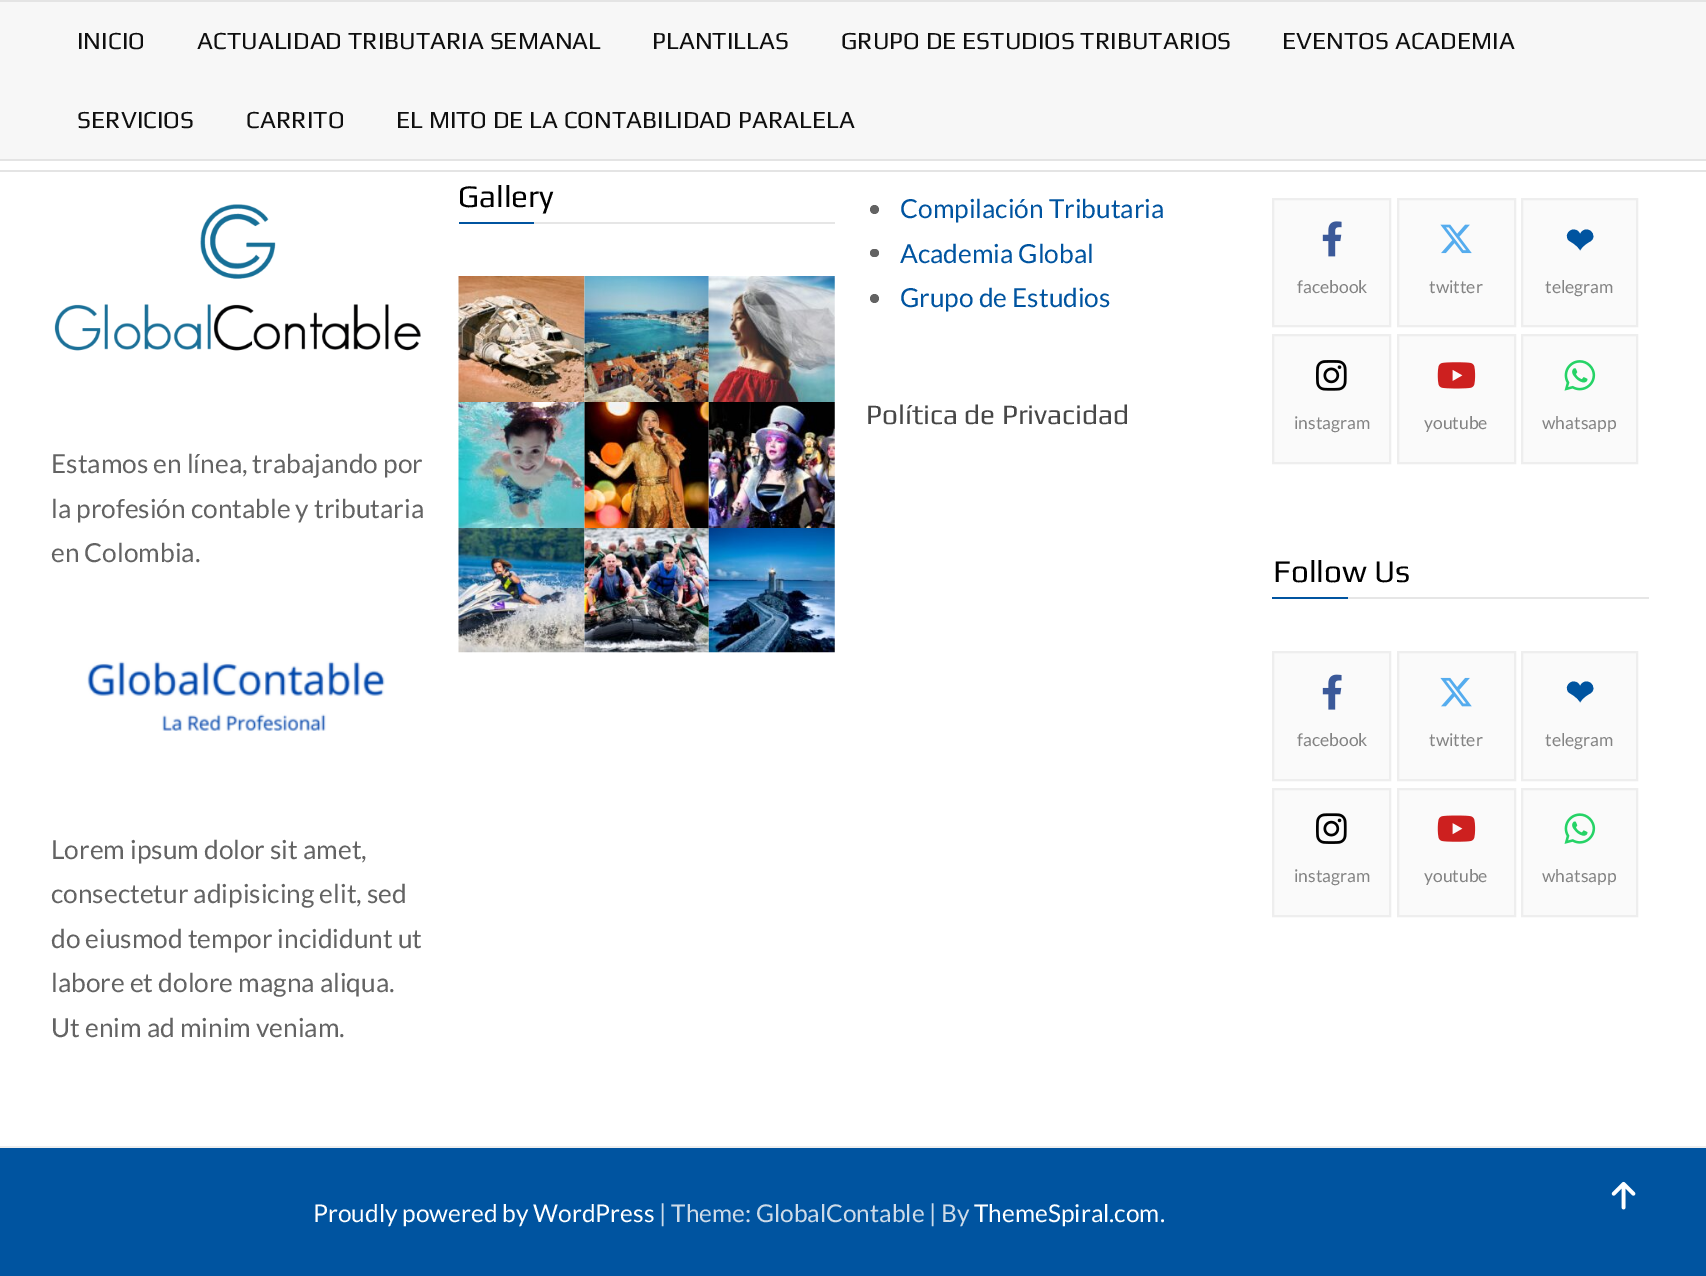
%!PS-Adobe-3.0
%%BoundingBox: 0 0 1706 1276
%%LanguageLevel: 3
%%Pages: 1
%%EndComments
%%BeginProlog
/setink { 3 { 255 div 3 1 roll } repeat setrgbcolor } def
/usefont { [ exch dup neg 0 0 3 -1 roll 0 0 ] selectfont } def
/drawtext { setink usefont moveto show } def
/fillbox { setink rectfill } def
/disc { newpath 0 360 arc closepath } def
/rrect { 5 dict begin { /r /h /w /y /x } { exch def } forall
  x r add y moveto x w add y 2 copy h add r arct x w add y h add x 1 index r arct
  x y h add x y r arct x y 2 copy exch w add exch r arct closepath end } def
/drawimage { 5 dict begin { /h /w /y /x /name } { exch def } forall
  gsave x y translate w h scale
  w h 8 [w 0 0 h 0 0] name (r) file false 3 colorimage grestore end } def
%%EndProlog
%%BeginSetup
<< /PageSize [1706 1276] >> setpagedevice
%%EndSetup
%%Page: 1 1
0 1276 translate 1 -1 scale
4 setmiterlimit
0 0 1706 1276 255 255 255 fillbox
0 170 1706 2 228 228 228 fillbox
0 2 1706 157 247 247 247 fillbox
0 0 1706 2 228 228 228 fillbox
0 159 1706 2 228 228 228 fillbox
(INICIO) 77 49 /Play-Regular 24.5 15 15 15 drawtext
(ACTUALIDAD TRIBUTARIA SEMANAL) 197 49 /Play-Regular 24.5 15 15 15 drawtext
(PLANTILLAS) 652 49 /Play-Regular 24.5 15 15 15 drawtext
(GRUPO DE ESTUDIOS TRIBUTARIOS) 841 49 /Play-Regular 24.5 15 15 15 drawtext
(EVENTOS ACADEMIA) 1282 49 /Play-Regular 24.5 15 15 15 drawtext
(SERVICIOS) 77 128 /Play-Regular 24.5 15 15 15 drawtext
(CARRITO) 246 128 /Play-Regular 24.5 15 15 15 drawtext
(EL MITO DE LA CONTABILIDAD PARALELA) 396 128 /Play-Regular 24.5 15 15 15 drawtext
0 1146 1706 2 238 238 238 fillbox
(assets/img1.rgb) 54 204 367 147 drawimage
(Estamos en línea, trabajando por) 51 473 /Lato-Regular 26.25 99 99 99 drawtext
(la profesión contable y tributaria) 51 518 /Lato-Regular 26.25 99 99 99 drawtext
(en Colombia.) 51 562 /Lato-Regular 26.25 99 99 99 drawtext
(assets/img2.rgb) 87 661 298 70 drawimage
(Lorem ipsum dolor sit amet,) 51 859 /Lato-Regular 26.25 99 99 99 drawtext
(consectetur adipisicing elit, sed) 51 903 /Lato-Regular 26.25 99 99 99 drawtext
(do eiusmod tempor incididunt ut) 51 948 /Lato-Regular 26.25 99 99 99 drawtext
(labore et dolore magna aliqua.) 51 992 /Lato-Regular 26.25 99 99 99 drawtext
(Ut enim ad minim veniam.) 51 1037 /Lato-Regular 26.25 99 99 99 drawtext
534 222 301 2 230 230 230 fillbox
(Gallery) 458 207 /Play-Regular 31.5 0 0 0 drawtext
459 222 75 2 0 84 160 fillbox
(assets/img3.rgb) 458 276 127 126 drawimage
(assets/img4.rgb) 584 276 125 126 drawimage
(assets/img5.rgb) 708 276 127 126 drawimage
(assets/img6.rgb) 458 402 127 126 drawimage
(assets/img7.rgb) 584 402 125 126 drawimage
(assets/img8.rgb) 708 402 127 126 drawimage
(assets/img9.rgb) 458 528 127 125 drawimage
(assets/img10.rgb) 584 528 125 125 drawimage
(assets/img11.rgb) 708 528 127 125 drawimage
99 99 99 setink
874.5 209.5 4.5 disc fill
(Compilación Tributaria) 900 218 /Lato-Regular 26.25 0 84 160 drawtext
99 99 99 setink
870 249 9 8 4 rrect fill
(Academia Global) 900 263 /Lato-Regular 26.25 0 84 160 drawtext
99 99 99 setink
874.5 298.5 4.5 disc fill
(Grupo de Estudios) 900 307 /Lato-Regular 26.25 0 84 160 drawtext
(Política de Privacidad) 866 424 /Play-Regular 28 71 71 71 drawtext
250 250 250 setink
1273 199 moveto 1390 199 lineto 1390 326 lineto 1273 326 lineto closepath gsave fill grestore
238 238 238 setink
2 setlinewidth
stroke
(assets/img12.rgb) 1322 221 20 36 drawimage
(facebook) 1297 293 /Lato-Regular 17.5 131 131 131 drawtext
250 250 250 setink
1398 199 moveto 1515 199 lineto 1515 326 lineto 1398 326 lineto closepath gsave fill grestore
238 238 238 setink
stroke
(assets/img13.rgb) 1440 224 32 30 drawimage
(twitter) 1429 293 /Lato-Regular 17.5 131 131 131 drawtext
250 250 250 setink
1522 199 moveto 1637 199 lineto 1637 326 lineto 1522 326 lineto closepath gsave fill grestore
238 238 238 setink
stroke
(❤) 1565 253 /DejaVuSans-Bold 35 0 84 160 drawtext
(telegram) 1545 293 /Lato-Regular 17.5 131 131 131 drawtext
250 250 250 setink
1273 335 moveto 1390 335 lineto 1390 463 lineto 1273 463 lineto closepath gsave fill grestore
238 238 238 setink
stroke
(assets/img14.rgb) 1316 360 31 31 drawimage
(instagram) 1294 429 /Lato-Regular 17.5 131 131 131 drawtext
250 250 250 setink
1398 335 moveto 1515 335 lineto 1515 463 lineto 1398 463 lineto closepath gsave fill grestore
238 238 238 setink
stroke
(assets/img15.rgb) 1437 362 39 27 drawimage
(youtube) 1424 429 /Lato-Regular 17.5 131 131 131 drawtext
250 250 250 setink
1522 335 moveto 1637 335 lineto 1637 463 lineto 1522 463 lineto closepath gsave fill grestore
238 238 238 setink
stroke
(assets/img16.rgb) 1564 360 32 31 drawimage
(whatsapp) 1542 429 /Lato-Regular 17.5 131 131 131 drawtext
1348 597 301 2 230 230 230 fillbox
(Follow Us) 1273 582 /Play-Regular 31.5 0 0 0 drawtext
1272 597 76 2 0 84 160 fillbox
250 250 250 setink
1273 652 moveto 1390 652 lineto 1390 780 lineto 1273 780 lineto closepath gsave fill grestore
238 238 238 setink
stroke
(assets/img17.rgb) 1322 674 20 36 drawimage
(facebook) 1297 746 /Lato-Regular 17.5 131 131 131 drawtext
250 250 250 setink
1398 652 moveto 1515 652 lineto 1515 780 lineto 1398 780 lineto closepath gsave fill grestore
238 238 238 setink
stroke
(assets/img18.rgb) 1440 677 32 30 drawimage
(twitter) 1429 746 /Lato-Regular 17.5 131 131 131 drawtext
250 250 250 setink
1522 652 moveto 1637 652 lineto 1637 780 lineto 1522 780 lineto closepath gsave fill grestore
238 238 238 setink
stroke
(❤) 1565 705 /DejaVuSans-Bold 35 0 84 160 drawtext
(telegram) 1545 746 /Lato-Regular 17.5 131 131 131 drawtext
250 250 250 setink
1273 789 moveto 1390 789 lineto 1390 916 lineto 1273 916 lineto closepath gsave fill grestore
238 238 238 setink
stroke
(assets/img19.rgb) 1316 813 31 31 drawimage
(instagram) 1294 882 /Lato-Regular 17.5 131 131 131 drawtext
250 250 250 setink
1398 789 moveto 1515 789 lineto 1515 916 lineto 1398 916 lineto closepath gsave fill grestore
238 238 238 setink
stroke
(assets/img20.rgb) 1437 815 39 27 drawimage
(youtube) 1424 882 /Lato-Regular 17.5 131 131 131 drawtext
250 250 250 setink
1522 789 moveto 1637 789 lineto 1637 916 lineto 1522 916 lineto closepath gsave fill grestore
238 238 238 setink
stroke
(assets/img21.rgb) 1564 813 32 31 drawimage
(whatsapp) 1542 882 /Lato-Regular 17.5 131 131 131 drawtext
0 1148 1706 128 0 84 160 fillbox
(Proudly powered by WordPress) 313 1222 /Lato-Regular 24.5 255 255 255 drawtext
(| Theme: GlobalContable | By) 659 1222 /Lato-Regular 24.5 206 219 232 drawtext
(ThemeSpiral.com.) 974 1222 /Lato-Regular 24.5 255 255 255 drawtext
(assets/img22.rgb) 1611 1181 25 29 drawimage
showpage
%%EOF
